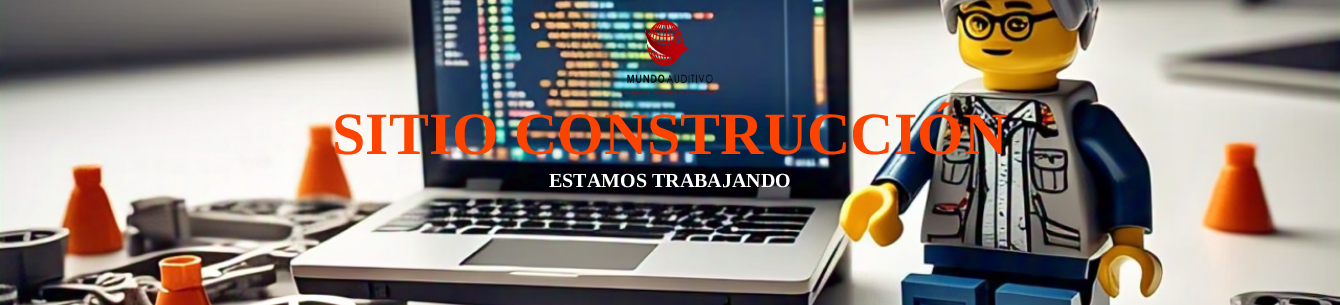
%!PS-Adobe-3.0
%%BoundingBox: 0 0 1340 305
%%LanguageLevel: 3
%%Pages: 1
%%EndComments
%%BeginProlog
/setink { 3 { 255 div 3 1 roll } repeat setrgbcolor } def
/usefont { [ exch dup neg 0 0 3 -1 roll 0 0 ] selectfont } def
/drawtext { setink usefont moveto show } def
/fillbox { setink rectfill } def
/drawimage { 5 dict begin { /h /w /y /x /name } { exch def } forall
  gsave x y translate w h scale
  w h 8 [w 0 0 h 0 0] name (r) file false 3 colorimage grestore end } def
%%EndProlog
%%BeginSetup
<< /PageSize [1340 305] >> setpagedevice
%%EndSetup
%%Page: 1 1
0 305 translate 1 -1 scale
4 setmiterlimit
0 0 1340 305 255 255 255 fillbox
(assets/img1.rgb) 0 0 1340 305 drawimage
(assets/img2.rgb) 622 20 95 75 drawimage
(SITIO CONSTRUCCIÓN) 332 154 /LiberationSerif-Bold 60 252 67 0 drawtext
(ESTAMOS TRABAJANDO) 549 187 /LiberationSerif-Bold 20 255 255 255 drawtext
showpage
%%EOF
